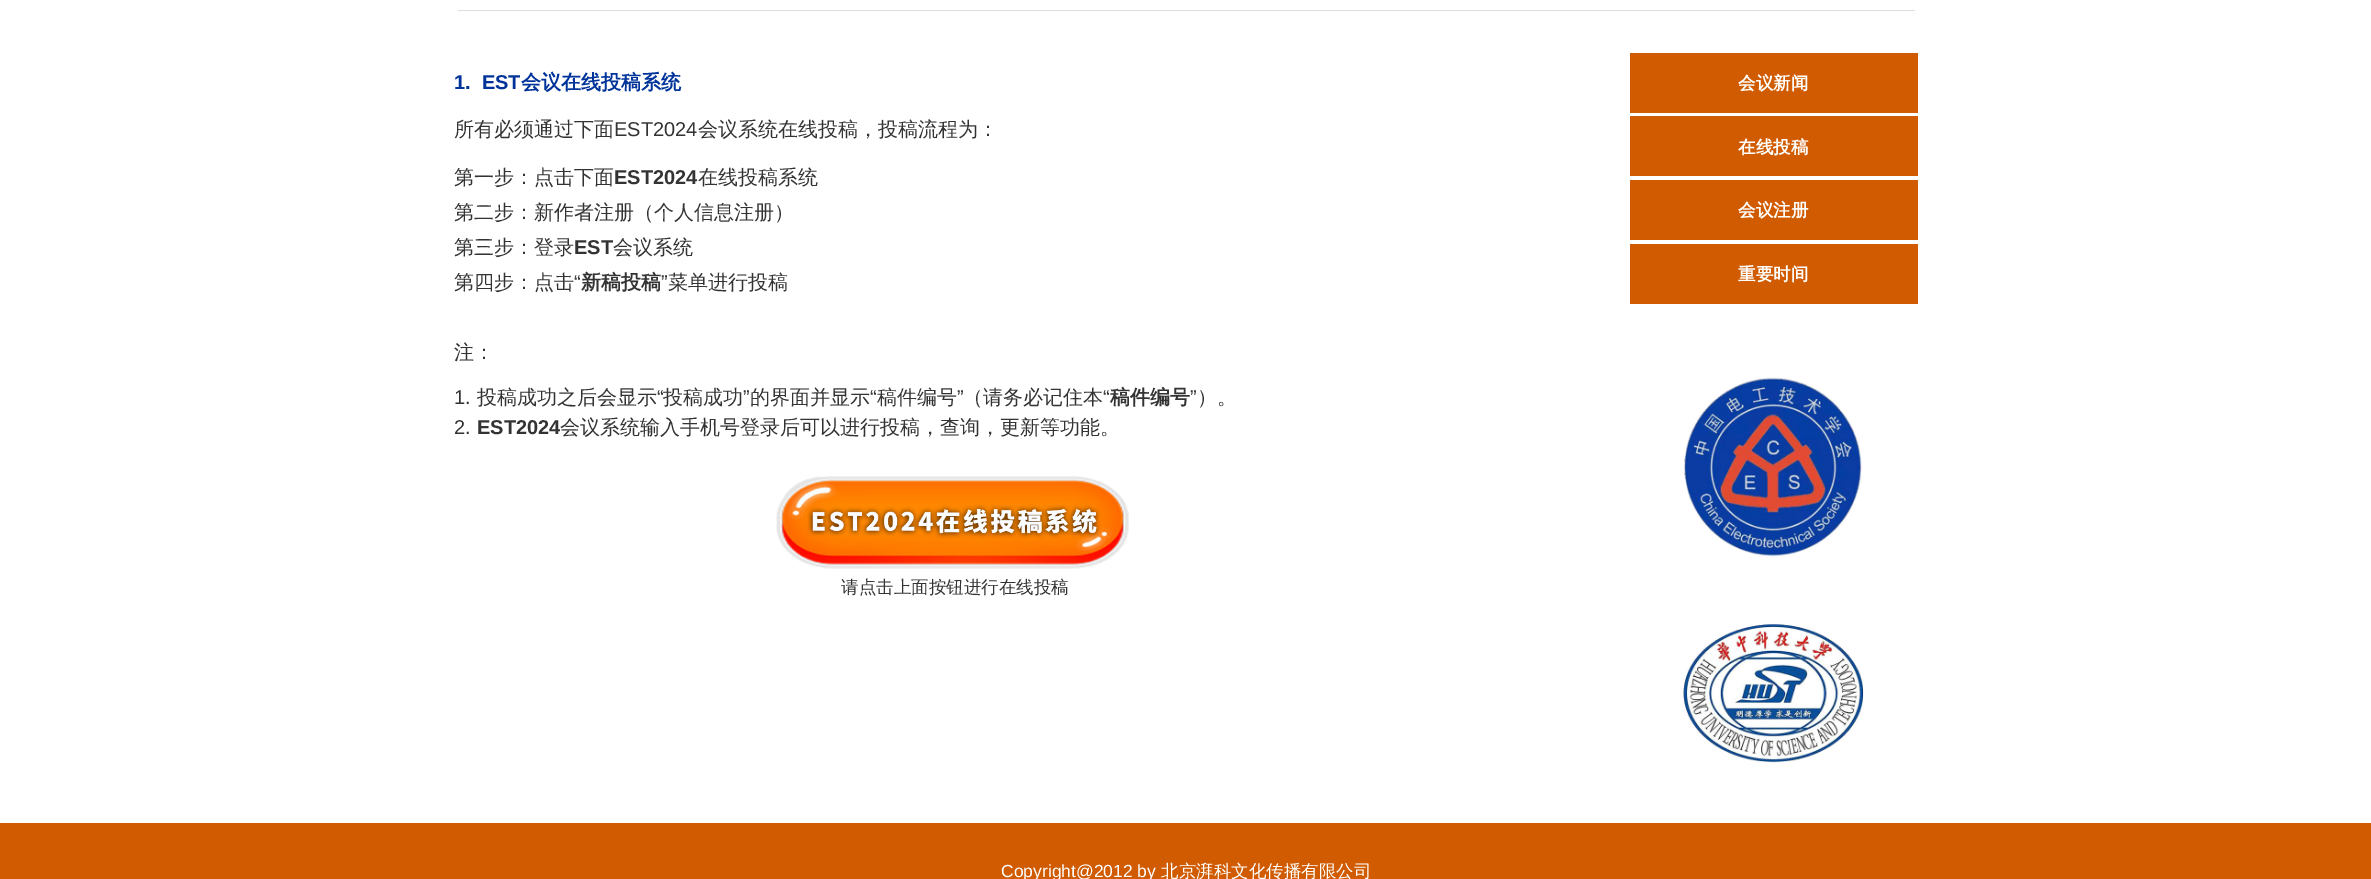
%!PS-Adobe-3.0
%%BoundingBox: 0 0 2371 879
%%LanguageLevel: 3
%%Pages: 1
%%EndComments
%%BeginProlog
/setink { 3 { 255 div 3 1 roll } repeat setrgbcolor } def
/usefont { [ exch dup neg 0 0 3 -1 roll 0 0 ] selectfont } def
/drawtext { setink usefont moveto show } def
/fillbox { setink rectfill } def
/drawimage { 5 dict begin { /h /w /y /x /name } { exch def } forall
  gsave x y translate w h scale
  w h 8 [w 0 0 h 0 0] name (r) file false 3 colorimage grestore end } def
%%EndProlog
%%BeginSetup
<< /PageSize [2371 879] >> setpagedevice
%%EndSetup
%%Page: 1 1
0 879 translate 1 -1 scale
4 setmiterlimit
0 0 2371 879 255 255 255 fillbox
458 10 1457 1 221 221 221 fillbox
(1.  EST) 454 89 /LiberationSans-Bold 20 0 51 153 drawtext
(会议在线投稿系统) 521 89 /WenQuanYiZenHei-Bold 20 0 51 153 drawtext
(所有必须通过下面) 454 136 /WenQuanYiZenHei-Medium 20 51 51 51 drawtext
(EST2024) 614 136 /LiberationSans-Regular 20 51 51 51 drawtext
(会议系统在线投稿，投稿流程为：) 698 136 /WenQuanYiZenHei-Medium 20 51 51 51 drawtext
(第一步：点击下面) 454 184 /WenQuanYiZenHei-Medium 20 51 51 51 drawtext
(EST2024) 614 184 /LiberationSans-Bold 20 51 51 51 drawtext
(在线投稿系统) 698 184 /WenQuanYiZenHei-Medium 20 51 51 51 drawtext
(第二步：新作者注册（个人信息注册）) 454 219 /WenQuanYiZenHei-Medium 20 51 51 51 drawtext
(第三步：登录) 454 254 /WenQuanYiZenHei-Medium 20 51 51 51 drawtext
(EST) 574 254 /LiberationSans-Bold 20 51 51 51 drawtext
(会议系统) 613 254 /WenQuanYiZenHei-Medium 20 51 51 51 drawtext
(第四步：点击) 454 289 /WenQuanYiZenHei-Medium 20 51 51 51 drawtext
(“) 574 289 /LiberationSans-Regular 20 51 51 51 drawtext
(新稿投稿) 581 289 /WenQuanYiZenHei-Bold 20 51 51 51 drawtext
(”) 661 289 /LiberationSans-Regular 20 51 51 51 drawtext
(菜单进行投稿) 668 289 /WenQuanYiZenHei-Medium 20 51 51 51 drawtext
(注：) 454 359 /WenQuanYiZenHei-Medium 20 51 51 51 drawtext
(1.) 454 404 /LiberationSans-Regular 20 51 51 51 drawtext
(投稿成功之后会显示) 477 404 /WenQuanYiZenHei-Medium 20 51 51 51 drawtext
(“) 657 404 /LiberationSans-Regular 20 51 51 51 drawtext
(投稿成功) 663 404 /WenQuanYiZenHei-Medium 20 51 51 51 drawtext
(”) 743 404 /LiberationSans-Regular 20 51 51 51 drawtext
(的界面并显示) 750 404 /WenQuanYiZenHei-Medium 20 51 51 51 drawtext
(“) 870 404 /LiberationSans-Regular 20 51 51 51 drawtext
(稿件编号) 877 404 /WenQuanYiZenHei-Medium 20 51 51 51 drawtext
(”) 957 404 /LiberationSans-Regular 20 51 51 51 drawtext
(（请务必记住本) 963 404 /WenQuanYiZenHei-Medium 20 51 51 51 drawtext
(“) 1103 404 /LiberationSans-Regular 20 51 51 51 drawtext
(稿件编号) 1110 404 /WenQuanYiZenHei-Bold 20 51 51 51 drawtext
(”) 1190 404 /LiberationSans-Regular 20 51 51 51 drawtext
(）。) 1197 404 /WenQuanYiZenHei-Medium 20 51 51 51 drawtext
(2.) 454 434 /LiberationSans-Regular 20 51 51 51 drawtext
(EST2024) 477 434 /LiberationSans-Bold 20 51 51 51 drawtext
(会议系统输入手机号登录后可以进行投稿，查询，更新等功能。) 560 434 /WenQuanYiZenHei-Medium 20 51 51 51 drawtext
(assets/img1.rgb) 776 476 353 93 drawimage
(请点击上面按钮进行在线投稿) 841 593 /WenQuanYiZenHei-Medium 17.5 51 51 51 drawtext
1630 53 288 60 208 91 0 fillbox
(会议新闻) 1738 89 /WenQuanYiZenHei-Bold 17.5 255 255 255 drawtext
1630 116 288 60 208 91 0 fillbox
(在线投稿) 1738 153 /WenQuanYiZenHei-Bold 17.5 255 255 255 drawtext
1630 180 288 60 208 91 0 fillbox
(会议注册) 1738 216 /WenQuanYiZenHei-Bold 17.5 255 255 255 drawtext
1630 244 288 60 208 91 0 fillbox
(重要时间) 1738 280 /WenQuanYiZenHei-Bold 17.5 255 255 255 drawtext
(assets/img2.rgb) 1684 377 178 180 drawimage
(assets/img3.rgb) 1683 624 181 139 drawimage
0 823 2371 56 208 91 0 fillbox
(Copyright@2012 by) 1001 877 /LiberationSans-Regular 17.5 255 255 255 drawtext
(北京湃科文化传播有限公司) 1161 877 /WenQuanYiZenHei-Medium 17.5 255 255 255 drawtext
showpage
%%EOF
